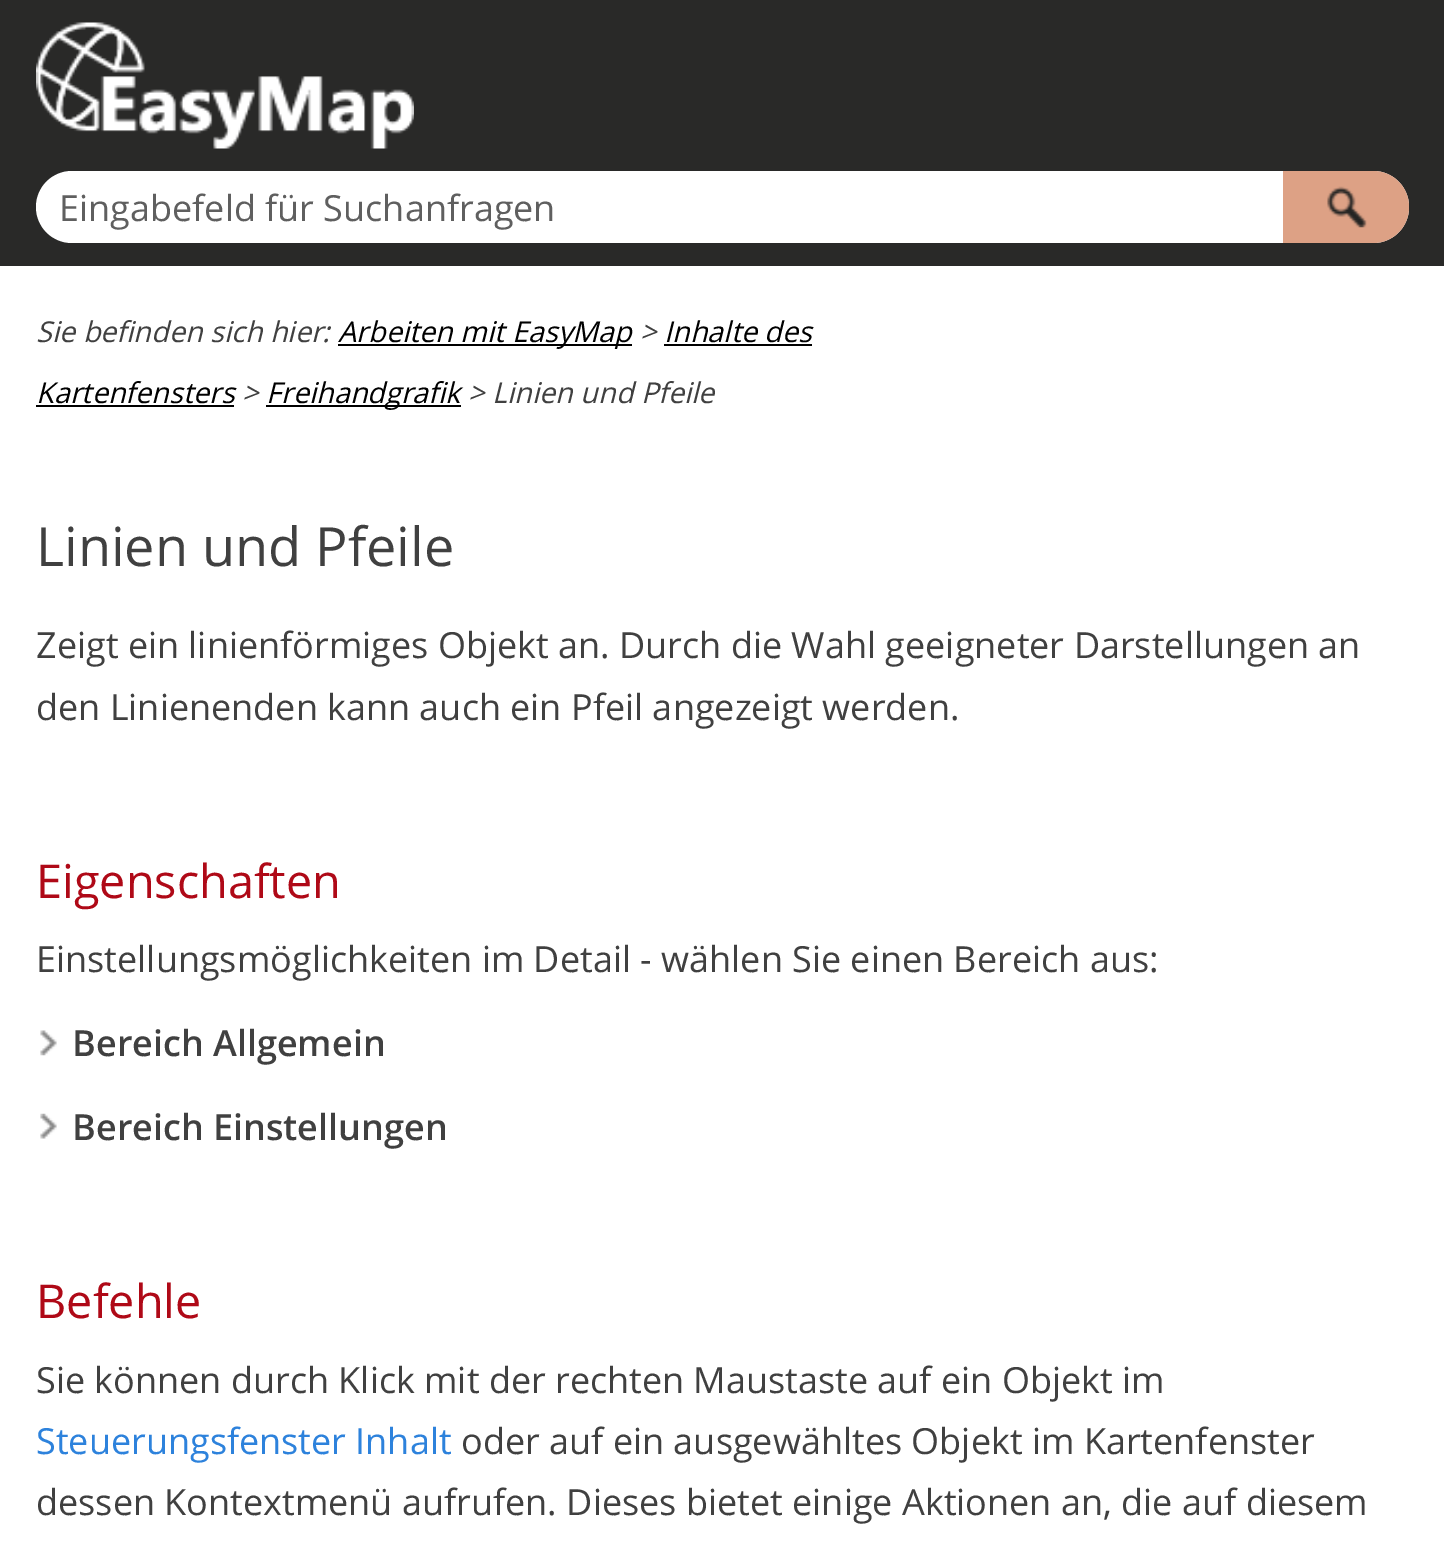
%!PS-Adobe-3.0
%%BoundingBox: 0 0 1444 1553
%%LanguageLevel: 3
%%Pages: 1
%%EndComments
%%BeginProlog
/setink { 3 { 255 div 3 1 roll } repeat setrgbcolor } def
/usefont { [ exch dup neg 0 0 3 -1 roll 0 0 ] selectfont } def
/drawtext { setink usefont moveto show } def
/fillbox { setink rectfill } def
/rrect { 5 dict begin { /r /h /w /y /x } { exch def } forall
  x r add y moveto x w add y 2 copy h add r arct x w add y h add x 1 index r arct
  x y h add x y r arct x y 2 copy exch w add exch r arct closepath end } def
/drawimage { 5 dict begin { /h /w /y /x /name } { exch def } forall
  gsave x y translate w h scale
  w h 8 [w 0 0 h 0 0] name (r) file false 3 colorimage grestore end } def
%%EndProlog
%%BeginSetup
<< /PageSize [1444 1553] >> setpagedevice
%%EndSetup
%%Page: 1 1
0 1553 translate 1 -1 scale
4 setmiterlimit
0 0 1444 1553 255 255 255 fillbox
0 0 1444 266 41 41 40 fillbox
(assets/img1.rgb) 36 22 378 127 drawimage
255 255 255 setink
36 171 1373 72 36 rrect fill
(Eingabefeld für Suchanfragen) 59 221 /OpenSans-Regular 36 95 95 95 drawtext
221 161 133 setink
1283 171 moveto 1373 171 lineto 1393 171 1409 187 1409 207 curveto 1409 227 1393 243 1373 243 curveto 1283 243 lineto closepath fill
(assets/img2.rgb) 1327 186 40 42 drawimage
(Sie befinden sich hier:) 36 342 /OpenSans-Italic 28.75 64 64 64 drawtext
338 344 294 2 0 0 0 fillbox
(Arbeiten mit EasyMap) 338 342 /OpenSans-Italic 28.75 0 0 0 drawtext
(>) 640 342 /OpenSans-Italic 28.75 64 64 64 drawtext
(Inhalte des) 664 342 /OpenSans-Italic 28.75 0 0 0 drawtext
664 344 148 2 0 0 0 fillbox
(Kartenfensters) 36 403 /OpenSans-Italic 28.75 0 0 0 drawtext
36 405 198 2 0 0 0 fillbox
(>) 242 403 /OpenSans-Italic 28.75 64 64 64 drawtext
266 405 195 2 0 0 0 fillbox
(Freihandgrafik) 266 403 /OpenSans-Italic 28.75 0 0 0 drawtext
(> Linien und Pfeile) 468 403 /OpenSans-Italic 28.75 64 64 64 drawtext
(Linien und Pfeile) 36 566 /OpenSans-Regular 54 64 64 64 drawtext
(Zeigt ein linienförmiges Objekt an. Durch die Wahl geeigneter Darstellungen an) 36 658 /OpenSans-Regular 36 64 64 64 drawtext
(den Linienenden kann auch ein Pfeil angezeigt werden.) 36 720 /OpenSans-Regular 36 64 64 64 drawtext
(Eigenschaften) 36 898 /OpenSans-Regular 46.75 175 9 23 drawtext
(Einstellungsmöglichkeiten im Detail - wählen Sie einen Bereich aus:) 36 972 /OpenSans-Regular 36 64 64 64 drawtext
(assets/img3.rgb) 40 1030 17 26 drawimage
(Bereich Allgemein) 72 1056 /OpenSans-SemiBold 36 64 64 64 drawtext
(assets/img4.rgb) 40 1113 17 26 drawimage
(Bereich Einstellungen) 72 1140 /OpenSans-SemiBold 36 64 64 64 drawtext
(Befehle) 36 1318 /OpenSans-Regular 46.75 175 9 23 drawtext
(Sie können durch Klick mit der rechten Maustaste auf ein Objekt im) 36 1393 /OpenSans-Regular 36 64 64 64 drawtext
(Steuerungsfenster Inhalt) 36 1454 /OpenSans-Regular 36 45 130 220 drawtext
(oder auf ein ausgewähltes Objekt im Kartenfenster) 461 1454 /OpenSans-Regular 36 64 64 64 drawtext
(dessen Kontextmenü aufrufen. Dieses bietet einige Aktionen an, die auf diesem) 36 1515 /OpenSans-Regular 36 64 64 64 drawtext
showpage
%%EOF
